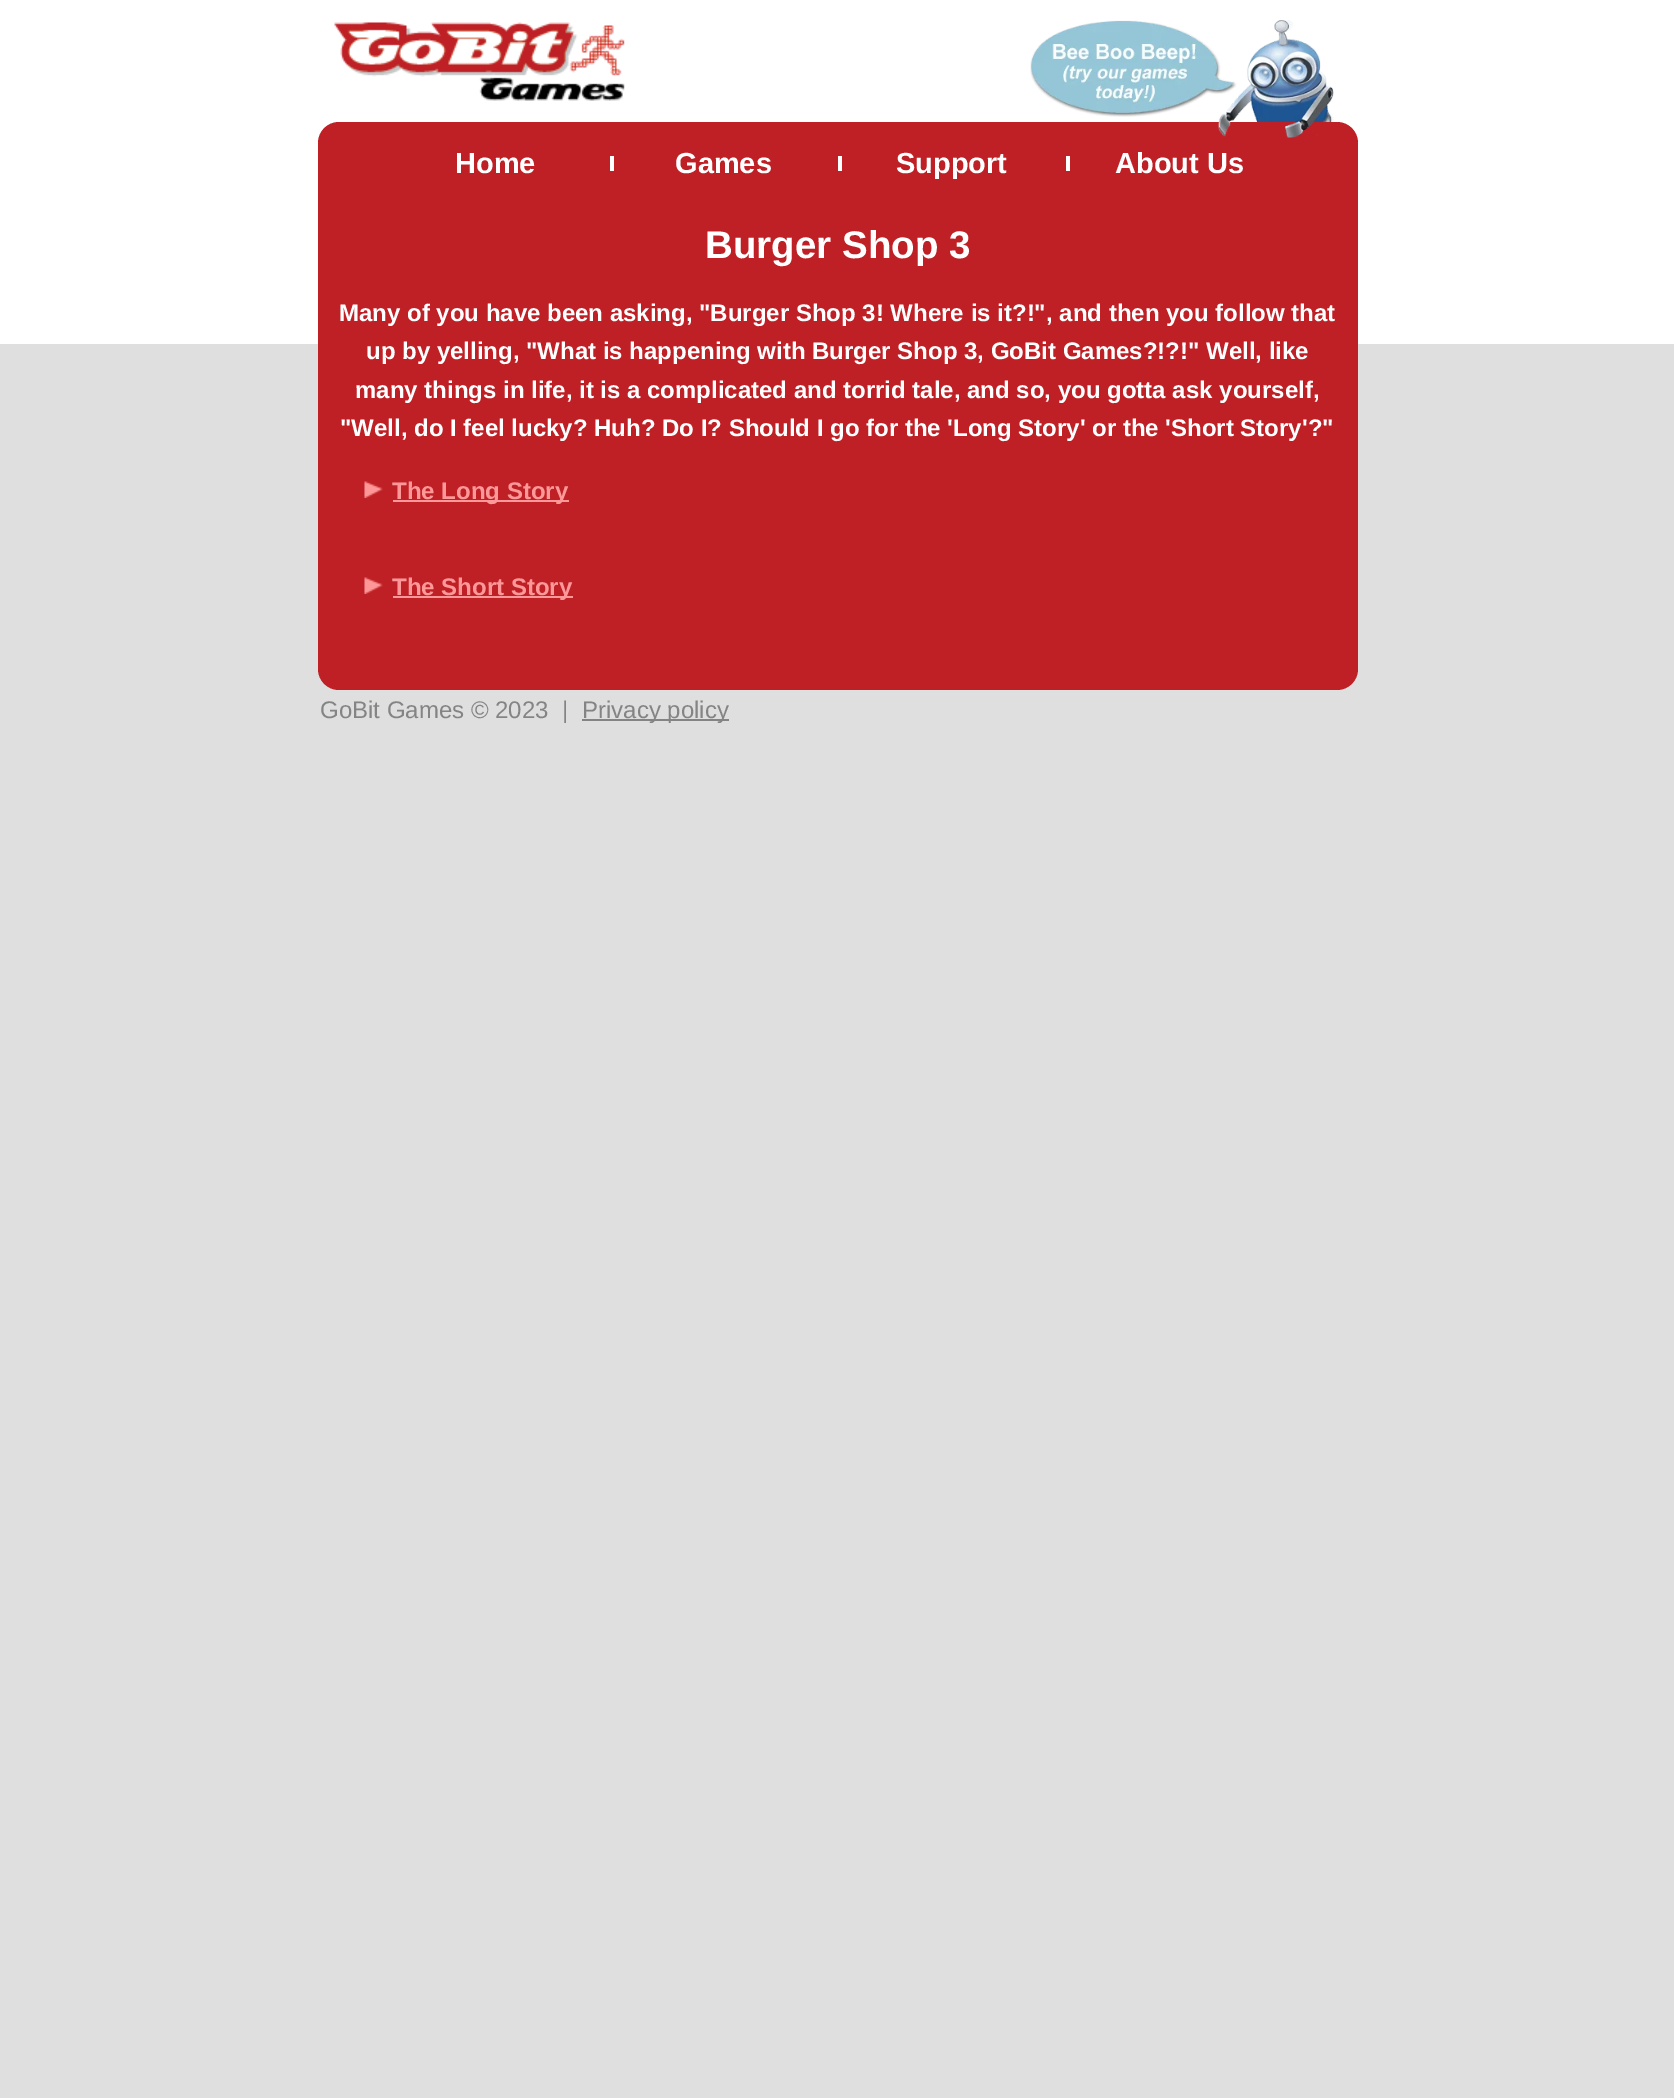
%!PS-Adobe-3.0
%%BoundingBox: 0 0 1674 2098
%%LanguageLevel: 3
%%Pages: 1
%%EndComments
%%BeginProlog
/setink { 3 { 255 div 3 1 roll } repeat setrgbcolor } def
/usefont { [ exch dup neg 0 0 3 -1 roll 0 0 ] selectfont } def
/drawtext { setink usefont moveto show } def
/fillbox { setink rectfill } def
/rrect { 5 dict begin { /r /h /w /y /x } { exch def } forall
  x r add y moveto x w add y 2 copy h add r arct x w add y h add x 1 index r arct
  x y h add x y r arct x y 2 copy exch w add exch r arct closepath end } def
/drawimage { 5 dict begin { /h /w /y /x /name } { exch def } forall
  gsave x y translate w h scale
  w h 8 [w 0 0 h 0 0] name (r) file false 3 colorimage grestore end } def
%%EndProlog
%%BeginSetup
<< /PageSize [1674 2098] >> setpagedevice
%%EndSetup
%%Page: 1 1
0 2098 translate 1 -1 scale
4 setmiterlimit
0 0 1674 2098 223 223 223 fillbox
0 0 1674 344 255 255 255 fillbox
(assets/img1.rgb) 334 22 291 79 drawimage
190 32 38 setink
318 122 1040 568 21 rrect fill
(assets/img3.rgb) 1218 20 116 118 drawimage
(assets/img2.rgb) 1030 20 207 97 drawimage
(Home) 455 173 /LiberationSans-Bold 29 255 255 255 drawtext
610 156 4 15 255 255 255 fillbox
(Games) 675 173 /LiberationSans-Bold 29 255 255 255 drawtext
838 156 4 15 255 255 255 fillbox
(Support) 896 173 /LiberationSans-Bold 29 255 255 255 drawtext
1066 156 4 15 255 255 255 fillbox
(About Us) 1115 173 /LiberationSans-Bold 29 255 255 255 drawtext
(Burger Shop 3) 705 258 /LiberationSans-Bold 38.5 255 255 255 drawtext
(Many of you have been asking, "Burger Shop 3! Where is it?!", and then you follow that) 339 321 /LiberationSans-Bold 24 255 255 255 drawtext
(up by yelling, "What is happening with Burger Shop 3, GoBit Games?!?!" Well, like) 366 359 /LiberationSans-Bold 24 255 255 255 drawtext
(many things in life, it is a complicated and torrid tale, and so, you gotta ask yourself,) 355 398 /LiberationSans-Bold 24 255 255 255 drawtext
("Well, do I feel lucky? Huh? Do I? Should I go for the 'Long Story' or the 'Short Story'?") 340 436 /LiberationSans-Bold 24 255 255 255 drawtext
(assets/img4.rgb) 364 481 19 17 drawimage
393 500 176 2 255 153 153 fillbox
(The Long Story) 392 499 /LiberationSans-Bold 24 255 153 153 drawtext
(assets/img4.rgb) 364 577 19 17 drawimage
393 596 180 2 255 153 153 fillbox
(The Short Story) 392 595 /LiberationSans-Bold 24 255 153 153 drawtext
(GoBit Games © 2023  |) 320 718 /LiberationSans-Regular 24 132 132 132 drawtext
582 719 147 2 132 132 132 fillbox
(Privacy policy) 582 718 /LiberationSans-Regular 24 132 132 132 drawtext
showpage
%%EOF
